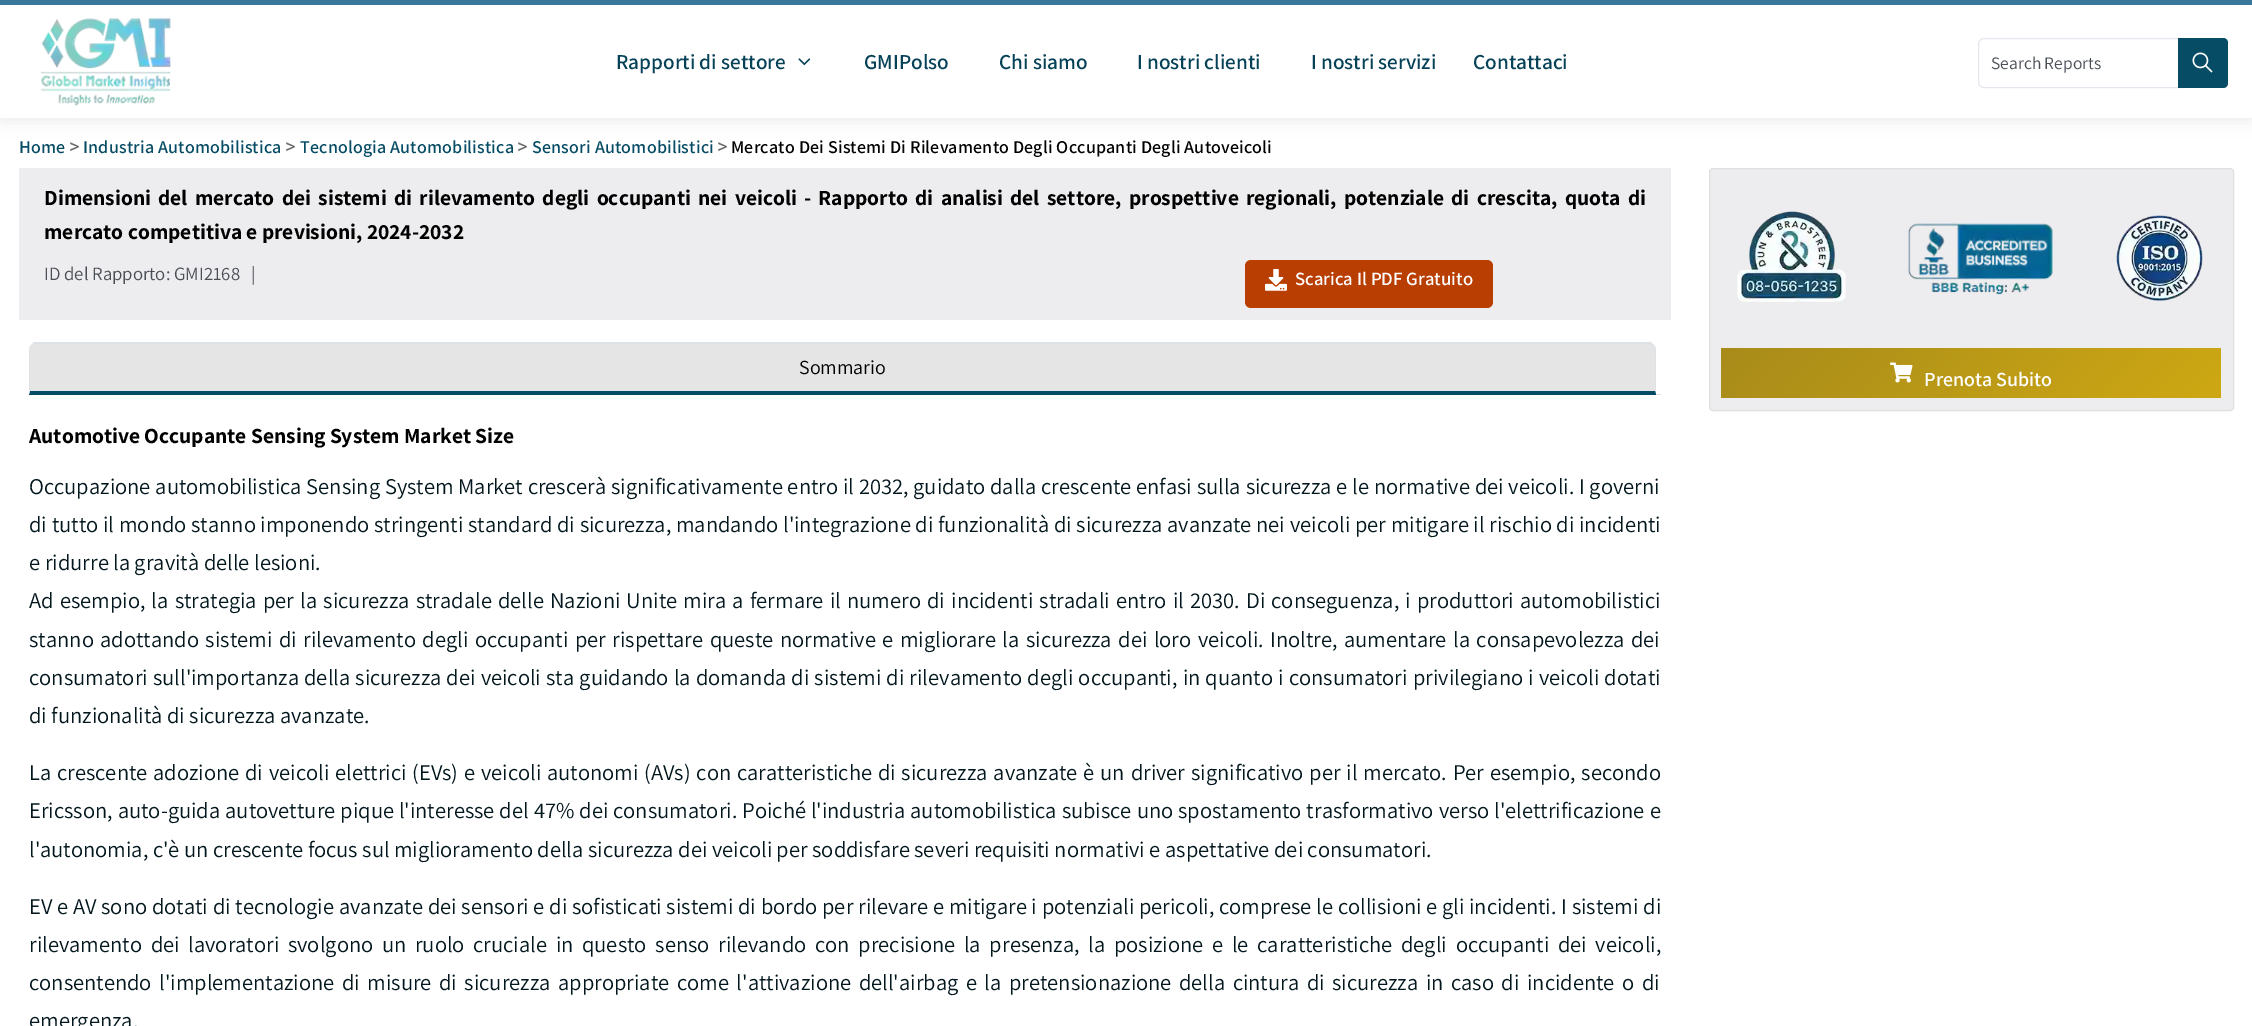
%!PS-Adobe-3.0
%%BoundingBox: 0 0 2252 1026
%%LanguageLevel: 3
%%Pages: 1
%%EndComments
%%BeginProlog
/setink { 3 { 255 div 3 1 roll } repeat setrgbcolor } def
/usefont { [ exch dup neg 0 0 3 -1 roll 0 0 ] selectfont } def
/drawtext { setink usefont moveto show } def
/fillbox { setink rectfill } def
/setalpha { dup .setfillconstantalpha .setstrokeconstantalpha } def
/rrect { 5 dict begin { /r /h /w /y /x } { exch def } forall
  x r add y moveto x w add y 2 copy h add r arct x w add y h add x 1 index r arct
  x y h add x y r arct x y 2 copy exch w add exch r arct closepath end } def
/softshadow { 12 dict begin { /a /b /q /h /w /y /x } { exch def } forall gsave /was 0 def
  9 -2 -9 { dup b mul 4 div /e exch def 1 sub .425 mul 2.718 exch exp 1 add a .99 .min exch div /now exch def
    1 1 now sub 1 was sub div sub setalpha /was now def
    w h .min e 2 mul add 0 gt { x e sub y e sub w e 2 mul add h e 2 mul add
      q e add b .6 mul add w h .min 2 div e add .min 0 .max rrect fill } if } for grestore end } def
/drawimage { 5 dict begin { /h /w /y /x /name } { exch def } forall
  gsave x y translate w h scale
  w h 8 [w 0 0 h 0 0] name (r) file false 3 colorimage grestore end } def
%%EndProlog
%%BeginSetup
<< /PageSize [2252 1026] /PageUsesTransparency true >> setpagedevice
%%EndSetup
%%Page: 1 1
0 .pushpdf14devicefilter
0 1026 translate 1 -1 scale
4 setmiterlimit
0 0 2252 1026 255 255 255 fillbox
gsave
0 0 moveto 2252 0 lineto 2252 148 lineto 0 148 lineto closepath 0 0 moveto 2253 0 lineto 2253 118 lineto 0 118 lineto closepath eoclip newpath
0 0 0 setink
0 0 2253 118 0 9.5 0.1 softshadow
grestore
0 0 2252 5 58 120 155 fillbox
(assets/img1.rgb) 40 18 131 88 drawimage
(Rapporti di settore) 616 69 /Assistant-SemiBold 21.25 5 65 87 drawtext
(assets/img2.rgb) 798 58 13 8 drawimage
(GMIPolso) 864 69 /Assistant-SemiBold 21.25 5 65 87 drawtext
(Chi siamo) 999 69 /Assistant-SemiBold 21.25 5 65 87 drawtext
(I nostri clienti) 1137 69 /Assistant-SemiBold 21.25 5 65 87 drawtext
(I nostri servizi) 1311 69 /Assistant-SemiBold 21.25 5 65 87 drawtext
(Contattaci) 1473 69 /Assistant-SemiBold 21.25 5 65 87 drawtext
228 231 238 setink
1978.5 38.5 211 49 5.5 rrect stroke
(Search Reports) 1991 69 /Assistant-Regular 17.5 74 78 86 drawtext
7 76 101 setink
2178 38 moveto 2223 38 lineto 2226 38 2228 40 2228 43 curveto 2228 83 lineto 2228 86 2226 88 2223 88 curveto 2178 88 lineto closepath fill
(assets/img3.rgb) 2192 52 21 21 drawimage
/Assistant-SemiBold 18 usefont
19 153 moveto 0.2 0 (Home) ashow
/Roboto-Regular 20 usefont
102 102 102 setink
69 153 moveto 0.2 0 (>) ashow
/Assistant-SemiBold 18 usefont
7 76 101 setink
83 153 moveto 0.2 0 (Industria Automobilistica) ashow
/Roboto-Regular 20 usefont
102 102 102 setink
285 153 moveto 0.2 0 (>) ashow
/Assistant-SemiBold 18 usefont
7 76 101 setink
300 153 moveto 0.2 0 (Tecnologia Automobilistica) ashow
/Roboto-Regular 20 usefont
102 102 102 setink
517 153 moveto 0.2 0 (>) ashow
/Assistant-SemiBold 18 usefont
7 76 101 setink
532 153 moveto 0.2 0 (Sensori Automobilistici) ashow
/Roboto-Regular 20 usefont
102 102 102 setink
717 153 moveto 0.2 0 (>) ashow
/Assistant-SemiBold 18 usefont
0 0 0 setink
731 153 moveto 0.2 0 (Mercato Dei Sistemi Di Rilevamento Degli Occupanti Degli Autoveicoli) ashow
19 168 1652 152 237 237 239 fillbox
/Assistant-Bold 21.6 usefont
0 0 0 setink
44 205 moveto 3 0 32 (Dimensioni del mercato dei sistemi di rilevamento degli occupanti nei veicoli - Rapporto di analisi del settore, prospettive regionali, potenziale di crescita, quota di) widthshow
(mercato competitiva e previsioni, 2024-2032) 44 239 /Assistant-Bold 21.6 0 0 0 drawtext
(ID del Rapporto: GMI2168) 44 280 /Assistant-Regular 18.75 74 78 86 drawtext
(|) 251 280 /Assistant-Regular 18.75 74 78 86 drawtext
185 62 2 setink
1245 260 248 48 6 rrect fill
(assets/img4.rgb) 1265 269 22 22 drawimage
(Scarica Il PDF Gratuito) 1295 285 /Assistant-SemiBold 18.75 255 255 255 drawtext
29 394 1632 1 222 226 230 fillbox
229 229 229 setink
36 344 moveto 1649 344 lineto 1652.5 344 1655 346.5 1655 350 curveto 1655 391 lineto 30 391 lineto 30 350 lineto 30 346.5 32.5 344 36 344 curveto closepath fill
222 226 230 setink
36 344 moveto 35 344 33 345 32 346 curveto 31 345 lineto 34 342 lineto 1651 342 lineto 1654 345 lineto 1653 346 lineto 1652 345 1650 344 1649 344 curveto closepath fill
1654 345 moveto 1655 346 1656 348 1656 350 curveto 1656 394 lineto 1655 391 lineto 1655 350 lineto 1655 348 1654 347 1653 346 curveto closepath fill
7 76 101 setink
29 395 moveto 1656 395 lineto 1656 394 lineto 1655 391 lineto 30 391 lineto closepath fill
222 226 230 setink
29 394 moveto 29 350 lineto 29 348 30 346 31 345 curveto 32 346 lineto 31 347 30 348 30 350 curveto 30 391 lineto closepath fill
(Sommario) 799 374 /Assistant-Regular 20 0 0 0 drawtext
(Automotive Occupante Sensing System Market Size) 29 443 /Assistant-Bold 21.6 0 0 0 drawtext
/Assistant-Regular 22.5 usefont
2 22 29 setink
29 494 moveto 0.3 0 32 (Occupazione automobilistica Sensing System Market crescerà significativamente entro il 2032, guidato dalla crescente enfasi sulla sicurezza e le normative dei veicoli. I governi) widthshow
29 532 moveto 0.25 0 32 (di tutto il mondo stanno imponendo stringenti standard di sicurezza, mandando l'integrazione di funzionalità di sicurezza avanzate nei veicoli per mitigare il rischio di incidenti) widthshow
(e ridurre la gravità delle lesioni.) 29 570 /Assistant-Regular 22.5 2 22 29 drawtext
29 608 moveto 1.7 0 32 (Ad esempio, la strategia per la sicurezza stradale delle Nazioni Unite mira a fermare il numero di incidenti stradali entro il 2030. Di conseguenza, i produttori automobilistici) widthshow
29 647 moveto 2 0 32 (stanno adottando sistemi di rilevamento degli occupanti per rispettare queste normative e migliorare la sicurezza dei loro veicoli. Inoltre, aumentare la consapevolezza dei) widthshow
29 685 moveto 0.7 0 32 (consumatori sull'importanza della sicurezza dei veicoli sta guidando la domanda di sistemi di rilevamento degli occupanti, in quanto i consumatori privilegiano i veicoli dotati) widthshow
(di funzionalità di sicurezza avanzate.) 29 723 /Assistant-Regular 22.5 2 22 29 drawtext
29 780 moveto 1.35 0 32 (La crescente adozione di veicoli elettrici \(EVs\) e veicoli autonomi \(AVs\) con caratteristiche di sicurezza avanzate è un driver significativo per il mercato. Per esempio, secondo) widthshow
29 818 moveto 0.5 0 32 (Ericsson, auto-guida autovetture pique l'interesse del 47% dei consumatori. Poiché l'industria automobilistica subisce uno spostamento trasformativo verso l'elettrificazione e) widthshow
(l'autonomia, c'è un crescente focus sul miglioramento della sicurezza dei veicoli per soddisfare severi requisiti normativi e aspettative dei consumatori.) 29 857 /Assistant-Regular 22.5 2 22 29 drawtext
29 914 moveto 0.25 0 32 (EV e AV sono dotati di tecnologie avanzate dei sensori e di sofisticati sistemi di bordo per rilevare e mitigare i potenziali pericoli, comprese le collisioni e gli incidenti. I sistemi di) widthshow
29 952 moveto 4.2 0 32 (rilevamento dei lavoratori svolgono un ruolo cruciale in questo senso rilevando con precisione la presenza, la posizione e le caratteristiche degli occupanti dei veicoli,) widthshow
29 990 moveto 3.1 0 32 (consentendo l'implementazione di misure di sicurezza appropriate come l'attivazione dell'airbag e la pretensionazione della cintura di sicurezza in caso di incidente o di) widthshow
(emergenza.) 29 1028 /Assistant-Regular 22.5 2 22 29 drawtext
237 237 239 setink
1709.5 168.5 524 242 3.5 rrect gsave fill grestore
223 223 223 setink
stroke
(assets/img5.rgb) 1737 211 109 91 drawimage
(assets/img6.rgb) 1908 223 145 72 drawimage
(assets/img7.rgb) 2116 215 87 86 drawimage
gsave 1721 348 500 50 2.5 rrect clip newpath
<< /ShadingType 2 /ColorSpace /DeviceRGB /Coords [1834 235 2109 510] /Extend [true true] /Function << /FunctionType 2 /Domain [0 1] /C0 [0.659 0.545 0.102] /C1 [0.808 0.659 0.075] /N 1 >> >> shfill grestore
(assets/img8.rgb) 1890 362 23 21 drawimage
(Prenota Subito) 1924 386 /Assistant-SemiBold 20 255 255 255 drawtext
.poppdf14devicefilter showpage
%%EOF
